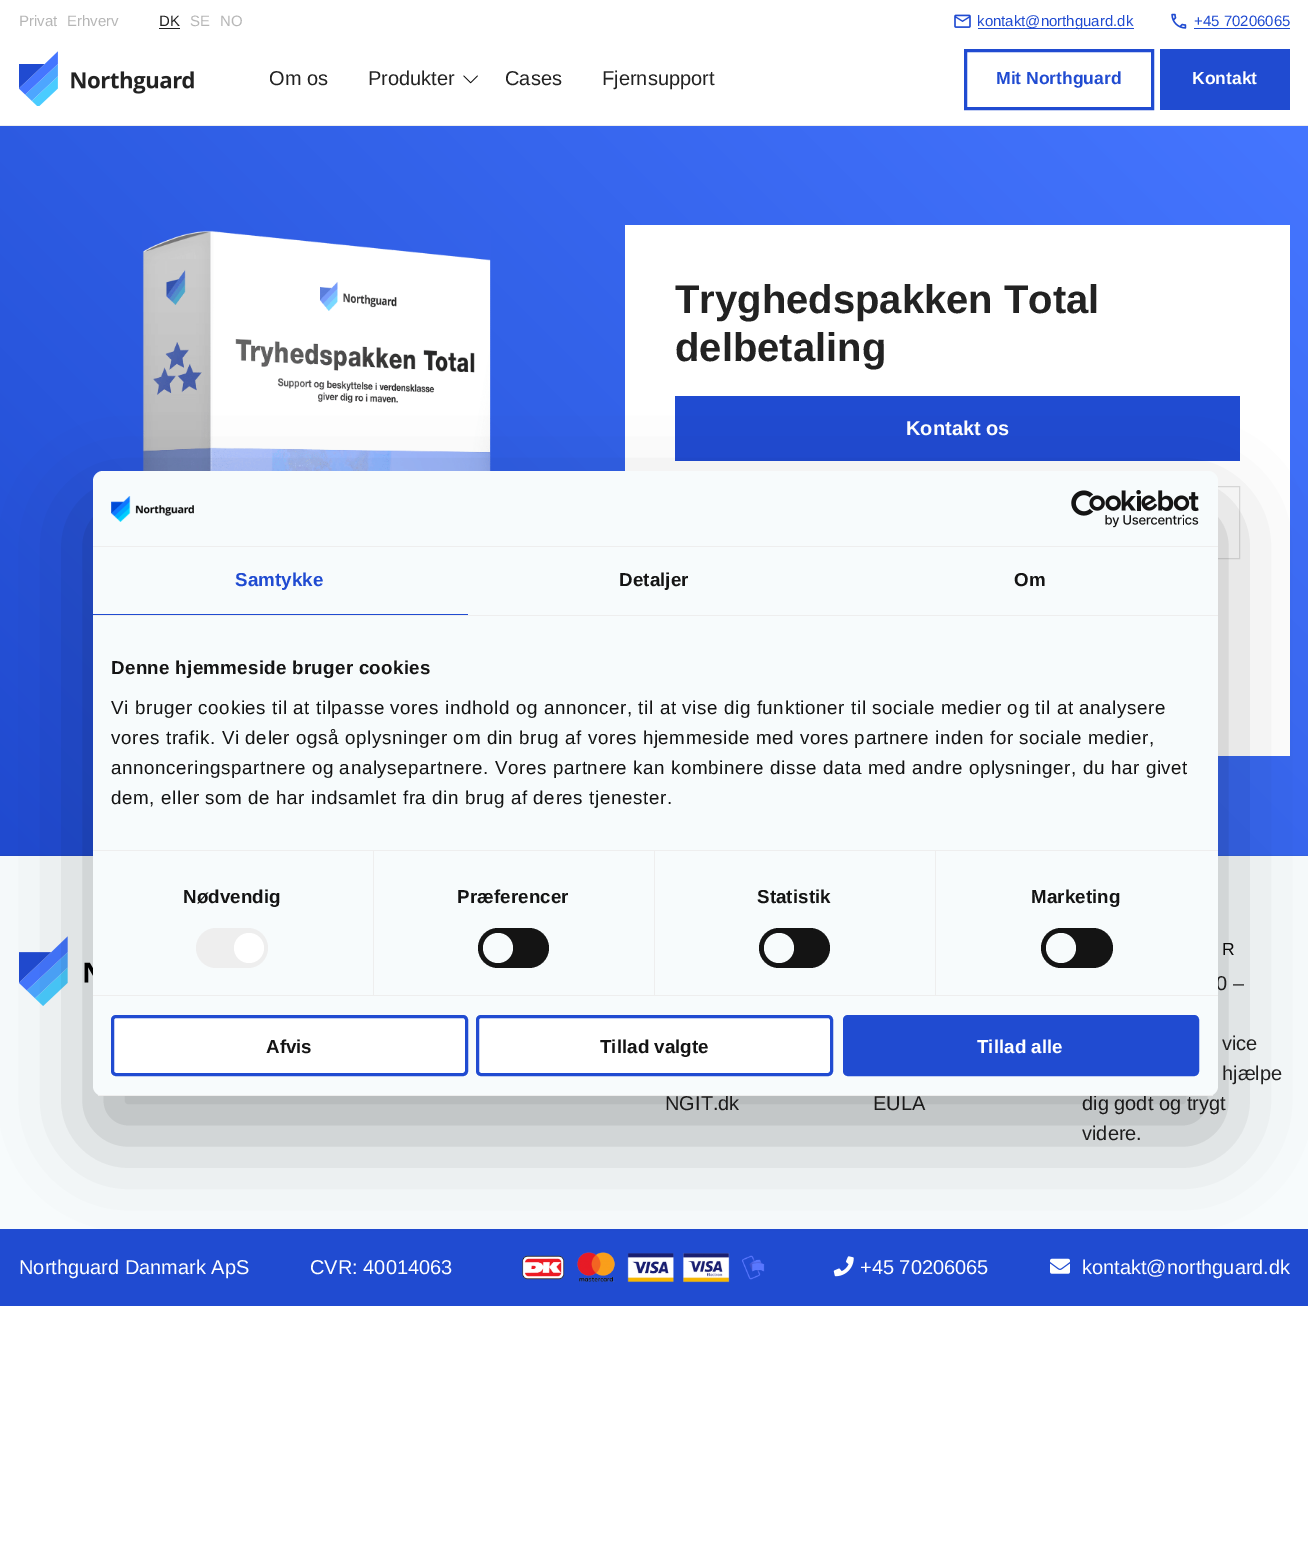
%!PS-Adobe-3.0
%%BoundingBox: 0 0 1308 1567
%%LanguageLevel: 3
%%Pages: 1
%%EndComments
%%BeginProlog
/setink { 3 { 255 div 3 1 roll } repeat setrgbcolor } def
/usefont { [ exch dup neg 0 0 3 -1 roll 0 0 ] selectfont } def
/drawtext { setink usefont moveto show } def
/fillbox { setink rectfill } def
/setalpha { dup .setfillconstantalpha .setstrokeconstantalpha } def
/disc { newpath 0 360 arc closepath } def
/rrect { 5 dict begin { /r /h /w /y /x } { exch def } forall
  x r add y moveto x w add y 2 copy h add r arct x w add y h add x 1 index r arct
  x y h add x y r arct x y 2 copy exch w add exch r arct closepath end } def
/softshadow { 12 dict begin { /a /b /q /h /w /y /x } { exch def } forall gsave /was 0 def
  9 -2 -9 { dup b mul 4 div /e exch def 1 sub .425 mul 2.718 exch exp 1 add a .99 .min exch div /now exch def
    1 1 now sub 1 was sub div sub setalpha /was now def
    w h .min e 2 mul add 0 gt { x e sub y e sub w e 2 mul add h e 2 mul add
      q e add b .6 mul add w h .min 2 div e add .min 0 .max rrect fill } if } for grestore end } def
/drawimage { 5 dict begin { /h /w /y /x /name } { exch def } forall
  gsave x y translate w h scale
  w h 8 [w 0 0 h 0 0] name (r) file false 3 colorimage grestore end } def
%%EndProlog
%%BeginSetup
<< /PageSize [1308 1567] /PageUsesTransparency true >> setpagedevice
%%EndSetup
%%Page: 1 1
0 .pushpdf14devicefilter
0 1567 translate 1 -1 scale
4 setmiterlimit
0 0 1308 1567 255 255 255 fillbox
0 125 1308 1 238 238 238 fillbox
(Privat) 19 26 /LiberationSans-Regular 15 182 182 182 drawtext
(Erhverv) 67 26 /LiberationSans-Regular 15 182 182 182 drawtext
(DK) 159 26 /LiberationSans-Regular 15 34 34 34 drawtext
159 28 21 1 34 34 34 fillbox
(SE) 190 26 /LiberationSans-Regular 15 182 182 182 drawtext
(NO) 220 26 /LiberationSans-Regular 15 182 182 182 drawtext
(assets/img1.rgb) 954 14 17 14 drawimage
978 28 156 1 32 75 209 fillbox
(kontakt@northguard.dk) 977 26 /LiberationSans-Regular 15 32 75 209 drawtext
(assets/img2.rgb) 1171 13 16 16 drawimage
(+45 70206065) 1194 26 /LiberationSans-Regular 15 32 75 209 drawtext
1194 28 96 1 32 75 209 fillbox
(assets/img3.rgb) 19 51 175 55 drawimage
(Om os) 269 85 /LiberationSans-Regular 20 34 34 34 drawtext
(Produkter) 368 85 /LiberationSans-Regular 20 34 34 34 drawtext
(assets/img4.rgb) 463 75 15 9 drawimage
(Cases) 505 85 /LiberationSans-Regular 20 34 34 34 drawtext
(Fjernsupport) 602 85 /LiberationSans-Regular 20 34 34 34 drawtext
32 75 209 setink
3 setlinewidth
965.5 50.5 187 58 rectstroke
(Mit Northguard) 996 84 /LiberationSans-Bold 17.5 32 75 209 drawtext
1160 49 130 61 32 75 209 fillbox
(Kontakt) 1192 84 /LiberationSans-Bold 17.5 255 255 255 drawtext
gsave 0 126 moveto 1308 126 lineto 1308 856 lineto 0 856 lineto closepath clip newpath
<< /ShadingType 2 /ColorSpace /DeviceRGB /Coords [144 1001 1164 -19] /Extend [true true] /Function << /FunctionType 2 /Domain [0 1] /C0 [0.125 0.294 0.82] /C1 [0.271 0.463 1] /N 1 >> >> shfill grestore
(assets/img5.rgb) 142 230 349 241 drawimage
625 225 665 531 255 255 255 fillbox
(Tryghedspakken Total) 675 313 /LiberationSans-Bold 40 34 34 34 drawtext
(delbetaling) 675 361 /LiberationSans-Bold 40 34 34 34 drawtext
675 396 565 65 32 75 209 fillbox
(Kontakt os) 906 435 /LiberationSans-Bold 20 255 255 255 drawtext
224 224 224 setink
1 setlinewidth
675.5 486.5 564 72 rectstroke
0 0 0 setink
0 855 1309 450 0 0.5 0.06 softshadow
0 856 1308 373 247 251 252 fillbox
(assets/img6.rgb) 19 936 74 70 drawimage
(NGIT.dk) 665 1110 /LiberationSans-Regular 20 34 34 34 drawtext
(EULA) 873 1110 /LiberationSans-Regular 20 34 34 34 drawtext
/LiberationSans-Regular 17.5 usefont
10 10 10 setink
1222 955 moveto 2 0 (R) ashow
(0 –) 1216 990 /LiberationSans-Regular 20 34 34 34 drawtext
(vice) 1222 1050 /LiberationSans-Regular 20 34 34 34 drawtext
(hjælpe) 1222 1080 /LiberationSans-Regular 20 34 34 34 drawtext
(dig godt og trygt) 1082 1110 /LiberationSans-Regular 20 34 34 34 drawtext
(videre.) 1082 1140 /LiberationSans-Regular 20 34 34 34 drawtext
0 1229 1308 77 32 75 209 fillbox
(Northguard Danmark ApS) 19 1274 /LiberationSans-Regular 20 255 255 255 drawtext
(CVR: 40014063) 310 1274 /LiberationSans-Regular 20 255 255 255 drawtext
(assets/img7.rgb) 522 1252 243 31 drawimage
(assets/img8.rgb) 833 1256 21 21 drawimage
(+45 70206065) 860 1274 /LiberationSans-Regular 20 255 255 255 drawtext
(assets/img9.rgb) 1050 1258 20 16 drawimage
(kontakt@northguard.dk) 1082 1274 /LiberationSans-Regular 20 255 255 255 drawtext
0 0 0 setink
93 511 1125 625 10 42.5 0.3 softshadow
247 251 252 setink
93 471 1125 625 10 rrect fill
93 546 1125 1 238 238 238 fillbox
(assets/img10.rgb) 111 496 83 26 drawimage
(assets/img11.rgb) 1071 490 128 38 drawimage
93 615 1125 1 238 238 238 fillbox
93 614 375 1 32 75 209 fillbox
/LiberationSans-Bold 18.75 usefont
235 586 moveto 0.1 0 (Samtykke) ashow
20 20 20 setink
619 586 moveto 0.1 0 (Detaljer) ashow
1014 586 moveto 0.1 0 (Om) ashow
93 850 1125 1 238 238 238 fillbox
20 20 20 setink
111 674 moveto 0.3 0 (Denne hjemmeside bruger cookies) ashow
/LiberationSans-Regular 18.75 usefont
111 714 moveto 0.62 0 (Vi bruger cookies til at tilpasse vores indhold og annoncer, til at vise dig funktioner til sociale medier og til at analysere) ashow
111 744 moveto 0.62 0 (vores trafik. Vi deler også oplysninger om din brug af vores hjemmeside med vores partnere inden for sociale medier,) ashow
111 774 moveto 0.62 0 (annonceringspartnere og analysepartnere. Vores partnere kan kombinere disse data med andre oplysninger, du har givet) ashow
111 804 moveto 0.62 0 (dem, eller som de har indsamlet fra din brug af deres tjenester.) ashow
93 995 1125 1 238 238 238 fillbox
373 851 1 144 238 238 238 fillbox
/LiberationSans-Bold 18.75 usefont
20 20 20 setink
183 903 moveto 0.1 0 (Nødvendig) ashow
238 238 238 setink
196 928 72 40 20 rrect fill
255 255 255 setink
249 948 15 disc fill
654 851 1 144 238 238 238 fillbox
20 20 20 setink
457 903 moveto 0.1 0 (Præferencer) ashow
478 928 71 40 20 rrect fill
247 251 252 setink
498 948 15 disc fill
935 851 1 144 238 238 238 fillbox
20 20 20 setink
757 903 moveto 0.1 0 (Statistik) ashow
759 928 71 40 20 rrect fill
247 251 252 setink
779 948 15 disc fill
20 20 20 setink
1031 903 moveto 0.1 0 (Marketing) ashow
1041 928 72 40 20 rrect fill
247 251 252 setink
1061 948 15 disc fill
gsave
93 471 1125 625 10 rrect clip newpath
93 1095 1125 1 238 238 238 fillbox
grestore
255 255 255 setink
112.5 1016.5 354 58 3.5 rrect gsave fill grestore
32 75 209 setink
3 setlinewidth
stroke
(Afvis) 266 1053 /LiberationSans-Bold 18.75 20 20 20 drawtext
255 255 255 setink
477.5 1016.5 354 58 3.5 rrect gsave fill grestore
32 75 209 setink
stroke
(Tillad valgte) 600 1053 /LiberationSans-Bold 18.75 20 20 20 drawtext
32 75 209 setink
844.5 1016.5 353 58 3.5 rrect gsave fill grestore
stroke
(Tillad alle) 977 1053 /LiberationSans-Bold 18.75 255 255 255 drawtext
.poppdf14devicefilter showpage
%%EOF
